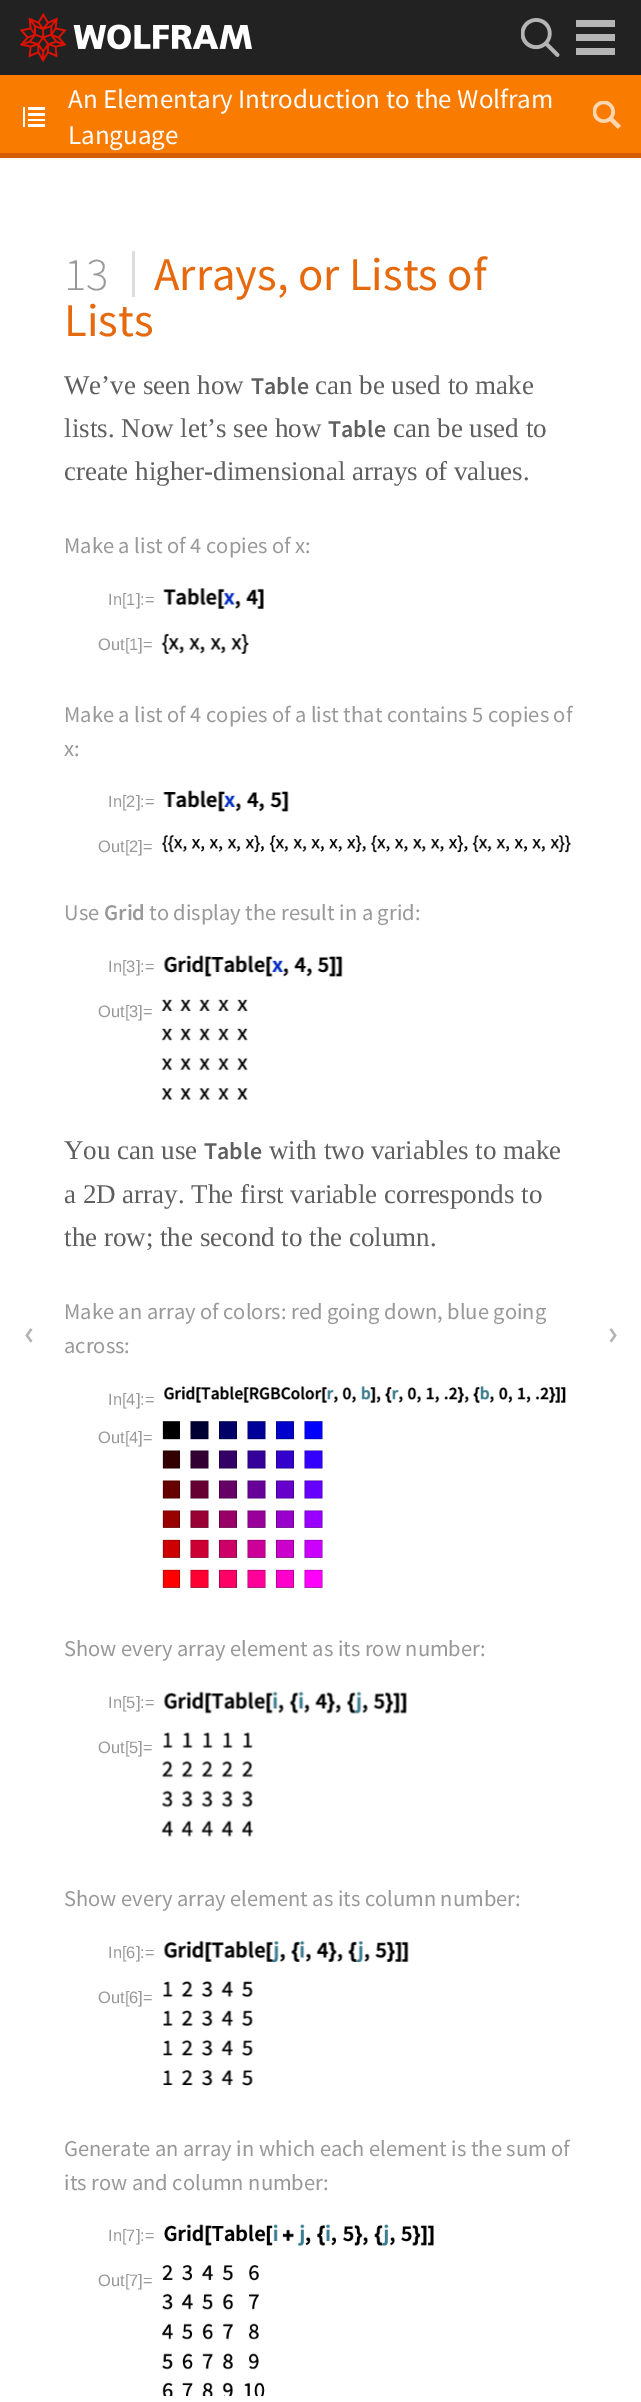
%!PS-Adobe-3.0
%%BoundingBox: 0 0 641 2402
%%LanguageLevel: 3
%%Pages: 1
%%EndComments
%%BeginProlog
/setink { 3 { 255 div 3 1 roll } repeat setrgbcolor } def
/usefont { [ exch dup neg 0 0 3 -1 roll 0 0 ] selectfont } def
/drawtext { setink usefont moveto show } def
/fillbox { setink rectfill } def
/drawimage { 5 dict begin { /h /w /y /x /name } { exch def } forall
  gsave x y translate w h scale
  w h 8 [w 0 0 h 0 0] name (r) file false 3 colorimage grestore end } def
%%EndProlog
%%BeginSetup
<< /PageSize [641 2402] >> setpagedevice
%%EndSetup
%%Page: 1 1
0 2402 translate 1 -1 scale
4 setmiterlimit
0 0 641 2402 255 255 255 fillbox
0 0 641 75 34 34 34 fillbox
(assets/img1.rgb) 20 12 232 51 drawimage
(assets/img2.rgb) 521 18 39 39 drawimage
576 20 39 7 181 181 181 fillbox
576 34 39 7 181 181 181 fillbox
576 48 39 7 181 181 181 fillbox
0 75 641 78 249 123 0 fillbox
0 153 641 5 213 93 5 fillbox
(assets/img3.rgb) 23 107 22 20 drawimage
(An Elementary Introduction to the Wolfram) 68 108 /SourceSansPro-Regular 27 255 255 255 drawtext
(Language) 68 144 /SourceSansPro-Regular 27 255 255 255 drawtext
(assets/img4.rgb) 593 101 28 28 drawimage
132 251 3 46 221 221 221 fillbox
(13) 64 290 /SourceSansPro-Light 46.75 153 153 153 drawtext
(Arrays, or Lists of) 154 290 /SourceSansPro-Regular 46.75 230 105 13 drawtext
(Lists) 64 336 /SourceSansPro-Regular 46.75 230 105 13 drawtext
(assets/img5.rgb) 25 1328 8 15 drawimage
(We’ve seen how) 64 394 /LiberationSerif-Regular 27 95 95 95 drawtext
(Table) 251 394 /SourceSansPro-SemiBold 24 95 95 95 drawtext
(can be used to make) 315 394 /LiberationSerif-Regular 27 95 95 95 drawtext
(lists. Now let’s see how) 64 437 /LiberationSerif-Regular 27 95 95 95 drawtext
(Table) 328 437 /SourceSansPro-SemiBold 24 95 95 95 drawtext
(can be used to) 393 437 /LiberationSerif-Regular 27 95 95 95 drawtext
(create higher-dimensional arrays of values.) 64 480 /LiberationSerif-Regular 27 95 95 95 drawtext
(Make a list of 4 copies of x:) 64 553 /SourceSansPro-Regular 22.5 153 153 153 drawtext
(In[1]:=) 108 605 /LiberationSans-Regular 16.5 153 153 153 drawtext
(assets/img6.rgb) 163 588 101 21 drawimage
(Out[1]=) 98 650 /LiberationSans-Regular 16.5 153 153 153 drawtext
(assets/img7.rgb) 161 633 88 21 drawimage
(Make a list of 4 copies of a list that contains 5 copies of) 64 722 /SourceSansPro-Regular 22.5 153 153 153 drawtext
(x:) 64 756 /SourceSansPro-Regular 22.5 153 153 153 drawtext
(In[2]:=) 108 807 /LiberationSans-Regular 16.5 153 153 153 drawtext
(assets/img8.rgb) 163 790 126 22 drawimage
(Out[2]=) 98 852 /LiberationSans-Regular 16.5 153 153 153 drawtext
(assets/img9.rgb) 162 835 409 18 drawimage
(Use) 64 920 /SourceSansPro-Regular 22.5 153 153 153 drawtext
(Grid) 104 920 /SourceSansPro-SemiBold 22.5 153 153 153 drawtext
(to display the result in a grid:) 149 920 /SourceSansPro-Regular 22.5 153 153 153 drawtext
(In[3]:=) 108 972 /LiberationSans-Regular 16.5 153 153 153 drawtext
(assets/img10.rgb) 163 955 180 22 drawimage
(Out[3]=) 98 1017 /LiberationSans-Regular 16.5 153 153 153 drawtext
(assets/img11.rgb) 161 999 87 101 drawimage
(You can use) 64 1159 /LiberationSerif-Regular 27 95 95 95 drawtext
(Table) 204 1159 /SourceSansPro-SemiBold 24 95 95 95 drawtext
(with two variables to make) 269 1159 /LiberationSerif-Regular 27 95 95 95 drawtext
(a 2D array. The first variable corresponds to) 64 1203 /LiberationSerif-Regular 27 95 95 95 drawtext
(the row; the second to the column.) 64 1246 /LiberationSerif-Regular 27 95 95 95 drawtext
(Make an array of colors: red going down, blue going) 64 1319 /SourceSansPro-Regular 22.5 153 153 153 drawtext
(across:) 64 1353 /SourceSansPro-Regular 22.5 153 153 153 drawtext
(In[4]:=) 108 1405 /LiberationSans-Regular 16.5 153 153 153 drawtext
(assets/img12.rgb) 164 1386 402 17 drawimage
(Out[4]=) 98 1443 /LiberationSans-Regular 16.5 153 153 153 drawtext
(assets/img13.rgb) 162 1421 161 167 drawimage
(Show every array element as its row number:) 64 1656 /SourceSansPro-Regular 22.5 153 153 153 drawtext
(In[5]:=) 108 1708 /LiberationSans-Regular 16.5 153 153 153 drawtext
(assets/img14.rgb) 163 1691 244 23 drawimage
(Out[5]=) 98 1753 /LiberationSans-Regular 16.5 153 153 153 drawtext
(assets/img15.rgb) 161 1732 93 105 drawimage
(Show every array element as its column number:) 64 1906 /SourceSansPro-Regular 22.5 153 153 153 drawtext
(In[6]:=) 108 1958 /LiberationSans-Regular 16.5 153 153 153 drawtext
(assets/img16.rgb) 163 1941 246 22 drawimage
(Out[6]=) 98 2003 /LiberationSans-Regular 16.5 153 153 153 drawtext
(assets/img17.rgb) 163 1981 90 105 drawimage
(Generate an array in which each element is the sum of) 64 2156 /SourceSansPro-Regular 22.5 153 153 153 drawtext
(its row and column number:) 64 2190 /SourceSansPro-Regular 22.5 153 153 153 drawtext
(In[7]:=) 108 2241 /LiberationSans-Regular 16.5 153 153 153 drawtext
(assets/img18.rgb) 164 2224 270 23 drawimage
(Out[7]=) 98 2286 /LiberationSans-Regular 16.5 153 153 153 drawtext
(assets/img19.rgb) 162 2265 103 131 drawimage
(assets/img20.rgb) 609 1328 8 15 drawimage
showpage
%%EOF
